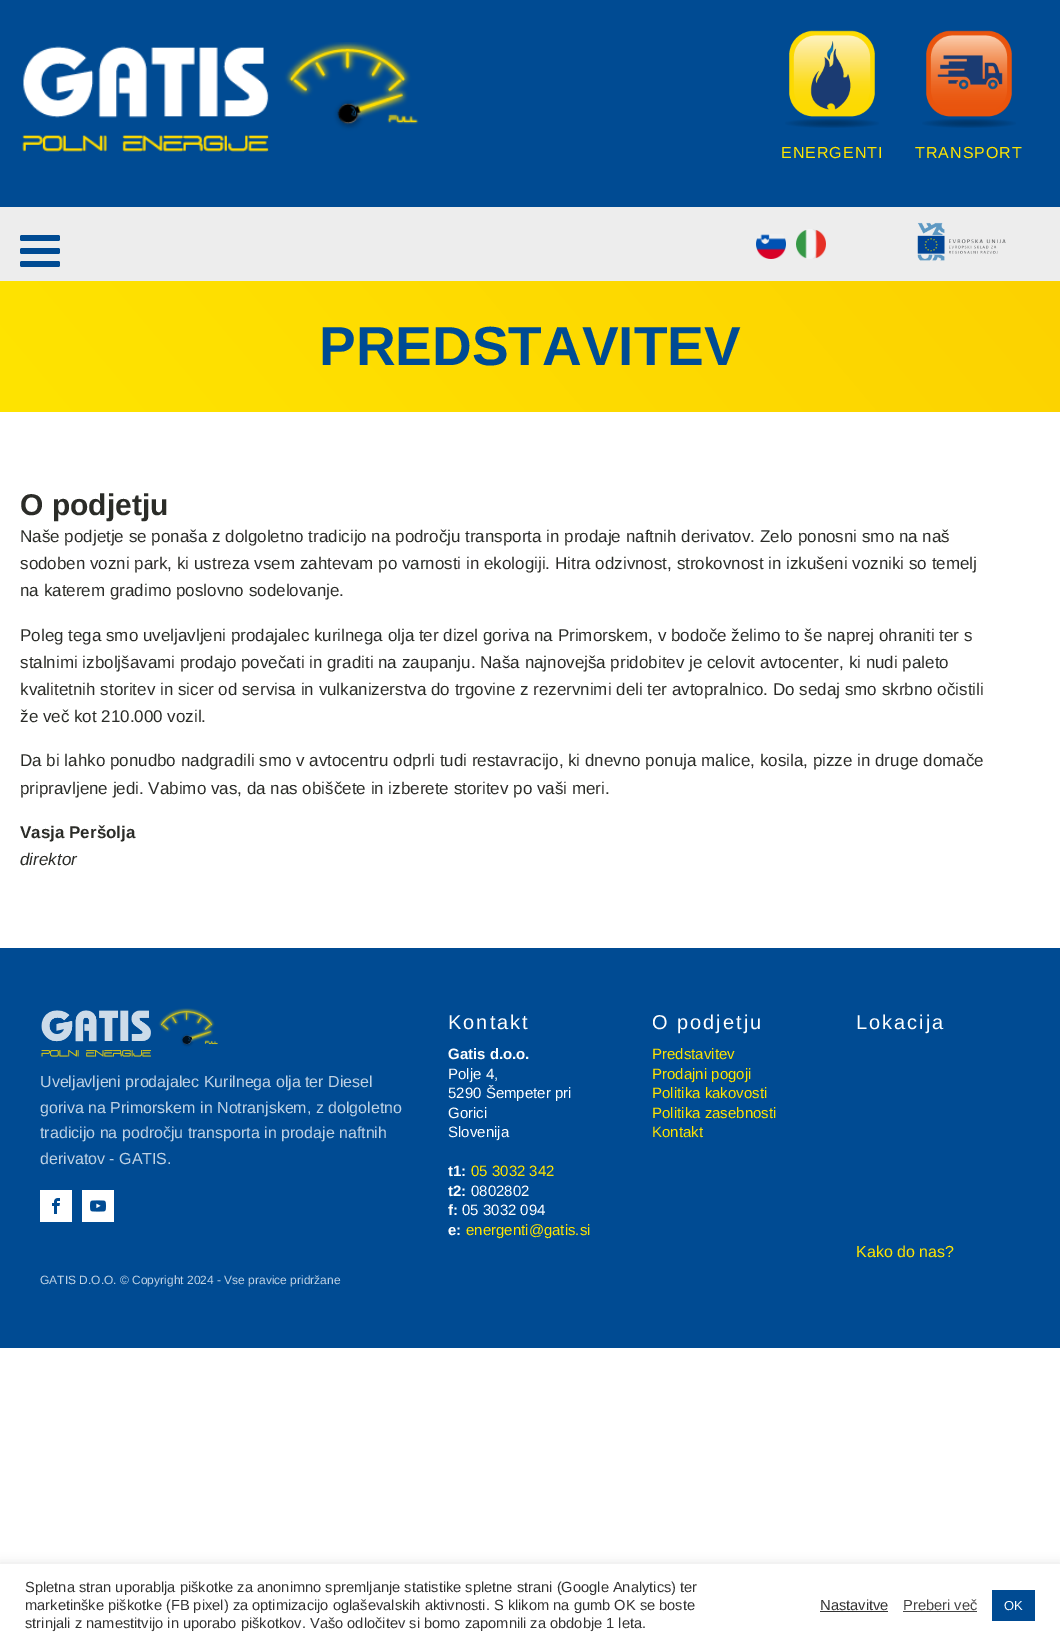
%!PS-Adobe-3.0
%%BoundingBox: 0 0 1060 1646
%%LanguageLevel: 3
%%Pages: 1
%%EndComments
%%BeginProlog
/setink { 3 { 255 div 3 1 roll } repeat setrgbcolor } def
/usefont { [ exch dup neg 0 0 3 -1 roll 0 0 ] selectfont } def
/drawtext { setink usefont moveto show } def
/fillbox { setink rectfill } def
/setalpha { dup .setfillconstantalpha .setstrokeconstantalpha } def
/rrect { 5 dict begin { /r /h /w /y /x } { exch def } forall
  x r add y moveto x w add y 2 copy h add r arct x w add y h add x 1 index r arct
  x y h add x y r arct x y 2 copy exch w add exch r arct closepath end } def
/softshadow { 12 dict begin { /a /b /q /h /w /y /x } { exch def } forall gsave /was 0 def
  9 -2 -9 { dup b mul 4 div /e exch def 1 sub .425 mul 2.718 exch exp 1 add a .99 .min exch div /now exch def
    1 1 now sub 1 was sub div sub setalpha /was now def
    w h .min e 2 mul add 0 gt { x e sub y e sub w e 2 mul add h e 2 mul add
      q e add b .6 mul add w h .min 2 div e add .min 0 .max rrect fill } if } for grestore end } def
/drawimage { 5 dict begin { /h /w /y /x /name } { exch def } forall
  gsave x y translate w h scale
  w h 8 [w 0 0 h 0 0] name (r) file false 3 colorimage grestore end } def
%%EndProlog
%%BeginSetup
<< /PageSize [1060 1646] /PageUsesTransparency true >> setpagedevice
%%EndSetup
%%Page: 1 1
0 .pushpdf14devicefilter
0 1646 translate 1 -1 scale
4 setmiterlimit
0 0 1060 1646 255 255 255 fillbox
0 0 1060 207 0 75 147 fillbox
(assets/img1.rgb) 22 42 397 110 drawimage
(assets/img2.rgb) 785 30 94 98 drawimage
/LiberationSans-Regular 16 usefont
255 228 0 setink
781 158 moveto 1 0 (ENERGENTI) ashow
(assets/img3.rgb) 922 30 94 98 drawimage
915 158 moveto 1 0 (TRANSPORT) ashow
0 207 1060 74 237 237 237 fillbox
0 75 147 setink
20 235 40 6 2 rrect fill
20 248 40 6 2 rrect fill
20 261 40 6 2 rrect fill
(assets/img4.rgb) 756 234 30 25 drawimage
(assets/img5.rgb) 796 229 30 30 drawimage
(assets/img6.rgb) 917 222 89 39 drawimage
gsave 0 281 moveto 1060 281 lineto 1060 412 lineto 0 412 lineto closepath clip newpath
<< /ShadingType 2 /ColorSpace /DeviceRGB /Coords [187 635 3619 -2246] /Extend [true true] /Function << /FunctionType 2 /Domain [0 1] /C0 [1 0.894 0] /C1 [0.949 0.549 0] /N 1 >> >> shfill grestore
(PREDSTAVITEV) 319 365 /LiberationSans-Bold 55 0 75 147 drawtext
(O podjetju) 20 515 /LiberationSans-Bold 30 43 44 40 drawtext
(Naše podjetje se ponaša z dolgoletno tradicijo na področju transporta in prodaje naftnih derivatov. Zelo ponosni smo na naš) 20 542 /LiberationSans-Regular 17 43 44 40 drawtext
(sodoben vozni park, ki ustreza vsem zahtevam po varnosti in ekologiji. Hitra odzivnost, strokovnost in izkušeni vozniki so temelj) 20 569 /LiberationSans-Regular 17 43 44 40 drawtext
(na katerem gradimo poslovno sodelovanje.) 20 596 /LiberationSans-Regular 17 43 44 40 drawtext
(Poleg tega smo uveljavljeni prodajalec kurilnega olja ter dizel goriva na Primorskem, v bodoče želimo to še naprej ohraniti ter s) 20 641 /LiberationSans-Regular 17 43 44 40 drawtext
(stalnimi izboljšavami prodajo povečati in graditi na zaupanju. Naša najnovejša pridobitev je celovit avtocenter, ki nudi paleto) 20 668 /LiberationSans-Regular 17 43 44 40 drawtext
(kvalitetnih storitev in sicer od servisa in vulkanizerstva do trgovine z rezervnimi deli ter avtopralnico. Do sedaj smo skrbno očistili) 20 695 /LiberationSans-Regular 17 43 44 40 drawtext
(že več kot 210.000 vozil.) 20 722 /LiberationSans-Regular 17 43 44 40 drawtext
(Da bi lahko ponudbo nadgradili smo v avtocentru odprli tudi restavracijo, ki dnevno ponuja malice, kosila, pizze in druge domače) 20 766 /LiberationSans-Regular 17 43 44 40 drawtext
(pripravljene jedi. Vabimo vas, da nas obiščete in izberete storitev po vaši meri.) 20 794 /LiberationSans-Regular 17 43 44 40 drawtext
(Vasja Peršolja) 20 838 /LiberationSans-Bold 17 43 44 40 drawtext
(direktor) 20 865 /LiberationSans-Italic 17 43 44 40 drawtext
0 948 1060 400 0 75 147 fillbox
(assets/img7.rgb) 41 1008 177 49 drawimage
(Uveljavljeni prodajalec Kurilnega olja ter Diesel) 40 1087 /LiberationSans-Regular 16 191 210 228 drawtext
(goriva na Primorskem in Notranjskem, z dolgoletno) 40 1113 /LiberationSans-Regular 16 191 210 228 drawtext
(tradicijo na področju transporta in prodaje naftnih) 40 1138 /LiberationSans-Regular 16 191 210 228 drawtext
(derivatov - GATIS.) 40 1164 /LiberationSans-Regular 16 191 210 228 drawtext
40 1190 32 32 255 255 255 fillbox
(assets/img8.rgb) 52 1198 8 16 drawimage
82 1190 32 32 255 255 255 fillbox
(assets/img9.rgb) 90 1200 16 12 drawimage
(GATIS D.O.O. © Copyright 2024 - Vse pravice pridržane) 40 1284 /LiberationSans-Regular 12 191 210 228 drawtext
/LiberationSans-Regular 20 usefont
255 255 255 setink
448 1029 moveto 2 0 (Kontakt) ashow
(Gatis d.o.o.) 448 1059 /LiberationSans-Bold 15 255 255 255 drawtext
(Polje 4,) 448 1079 /LiberationSans-Regular 15 255 255 255 drawtext
(5290 Šempeter pri) 448 1098 /LiberationSans-Regular 15 255 255 255 drawtext
(Gorici) 448 1118 /LiberationSans-Regular 15 255 255 255 drawtext
(Slovenija) 448 1137 /LiberationSans-Regular 15 255 255 255 drawtext
(t1:) 448 1176 /LiberationSans-Bold 15 255 255 255 drawtext
(05 3032 342) 471 1176 /LiberationSans-Regular 15 255 228 0 drawtext
(t2:) 448 1196 /LiberationSans-Bold 15 255 255 255 drawtext
(0802802) 471 1196 /LiberationSans-Regular 15 255 255 255 drawtext
(f:) 448 1215 /LiberationSans-Bold 15 255 255 255 drawtext
(05 3032 094) 462 1215 /LiberationSans-Regular 15 255 255 255 drawtext
(e:) 448 1235 /LiberationSans-Bold 15 255 255 255 drawtext
(energenti@gatis.si) 466 1235 /LiberationSans-Regular 15 255 228 0 drawtext
/LiberationSans-Regular 20 usefont
255 255 255 setink
652 1029 moveto 2 0 (O podjetju) ashow
(Predstavitev) 652 1059 /LiberationSans-Regular 15 255 228 0 drawtext
(Prodajni pogoji) 652 1079 /LiberationSans-Regular 15 255 228 0 drawtext
(Politika kakovosti) 652 1098 /LiberationSans-Regular 15 255 228 0 drawtext
(Politika zasebnosti) 652 1118 /LiberationSans-Regular 15 255 228 0 drawtext
(Kontakt) 652 1137 /LiberationSans-Regular 15 255 228 0 drawtext
/LiberationSans-Regular 20 usefont
255 255 255 setink
856 1029 moveto 2 0 (Lokacija) ashow
(Kako do nas?) 856 1257 /LiberationSans-Regular 16 255 228 0 drawtext
172 171 171 setink
0 1563 1060 82 0 5 0.3 softshadow
0 1564 1060 82 255 255 255 fillbox
(Spletna stran uporablja piškotke za anonimno spremljanje statistike spletne strani \(Google Analytics\) ter) 25 1592 /LiberationSans-Regular 14.65 51 51 51 drawtext
(marketinške piškotke \(FB pixel\) za optimizacijo oglaševalskih aktivnosti. S klikom na gumb OK se boste) 25 1610 /LiberationSans-Regular 14.65 51 51 51 drawtext
(strinjali z namestitvijo in uporabo piškotkov. Vašo odločitev si bomo zapomnili za obdobje 1 leta.) 25 1628 /LiberationSans-Regular 14.65 51 51 51 drawtext
(Nastavitve) 820 1610 /LiberationSans-Regular 14.65 51 51 51 drawtext
820 1611 68 1 51 51 51 fillbox
(Preberi več) 903 1610 /LiberationSans-Regular 14.65 68 68 68 drawtext
903 1611 74 1 68 68 68 fillbox
992 1590 43 31 0 75 147 fillbox
(OK) 1004 1610 /LiberationSans-Regular 13 255 255 255 drawtext
.poppdf14devicefilter showpage
%%EOF
